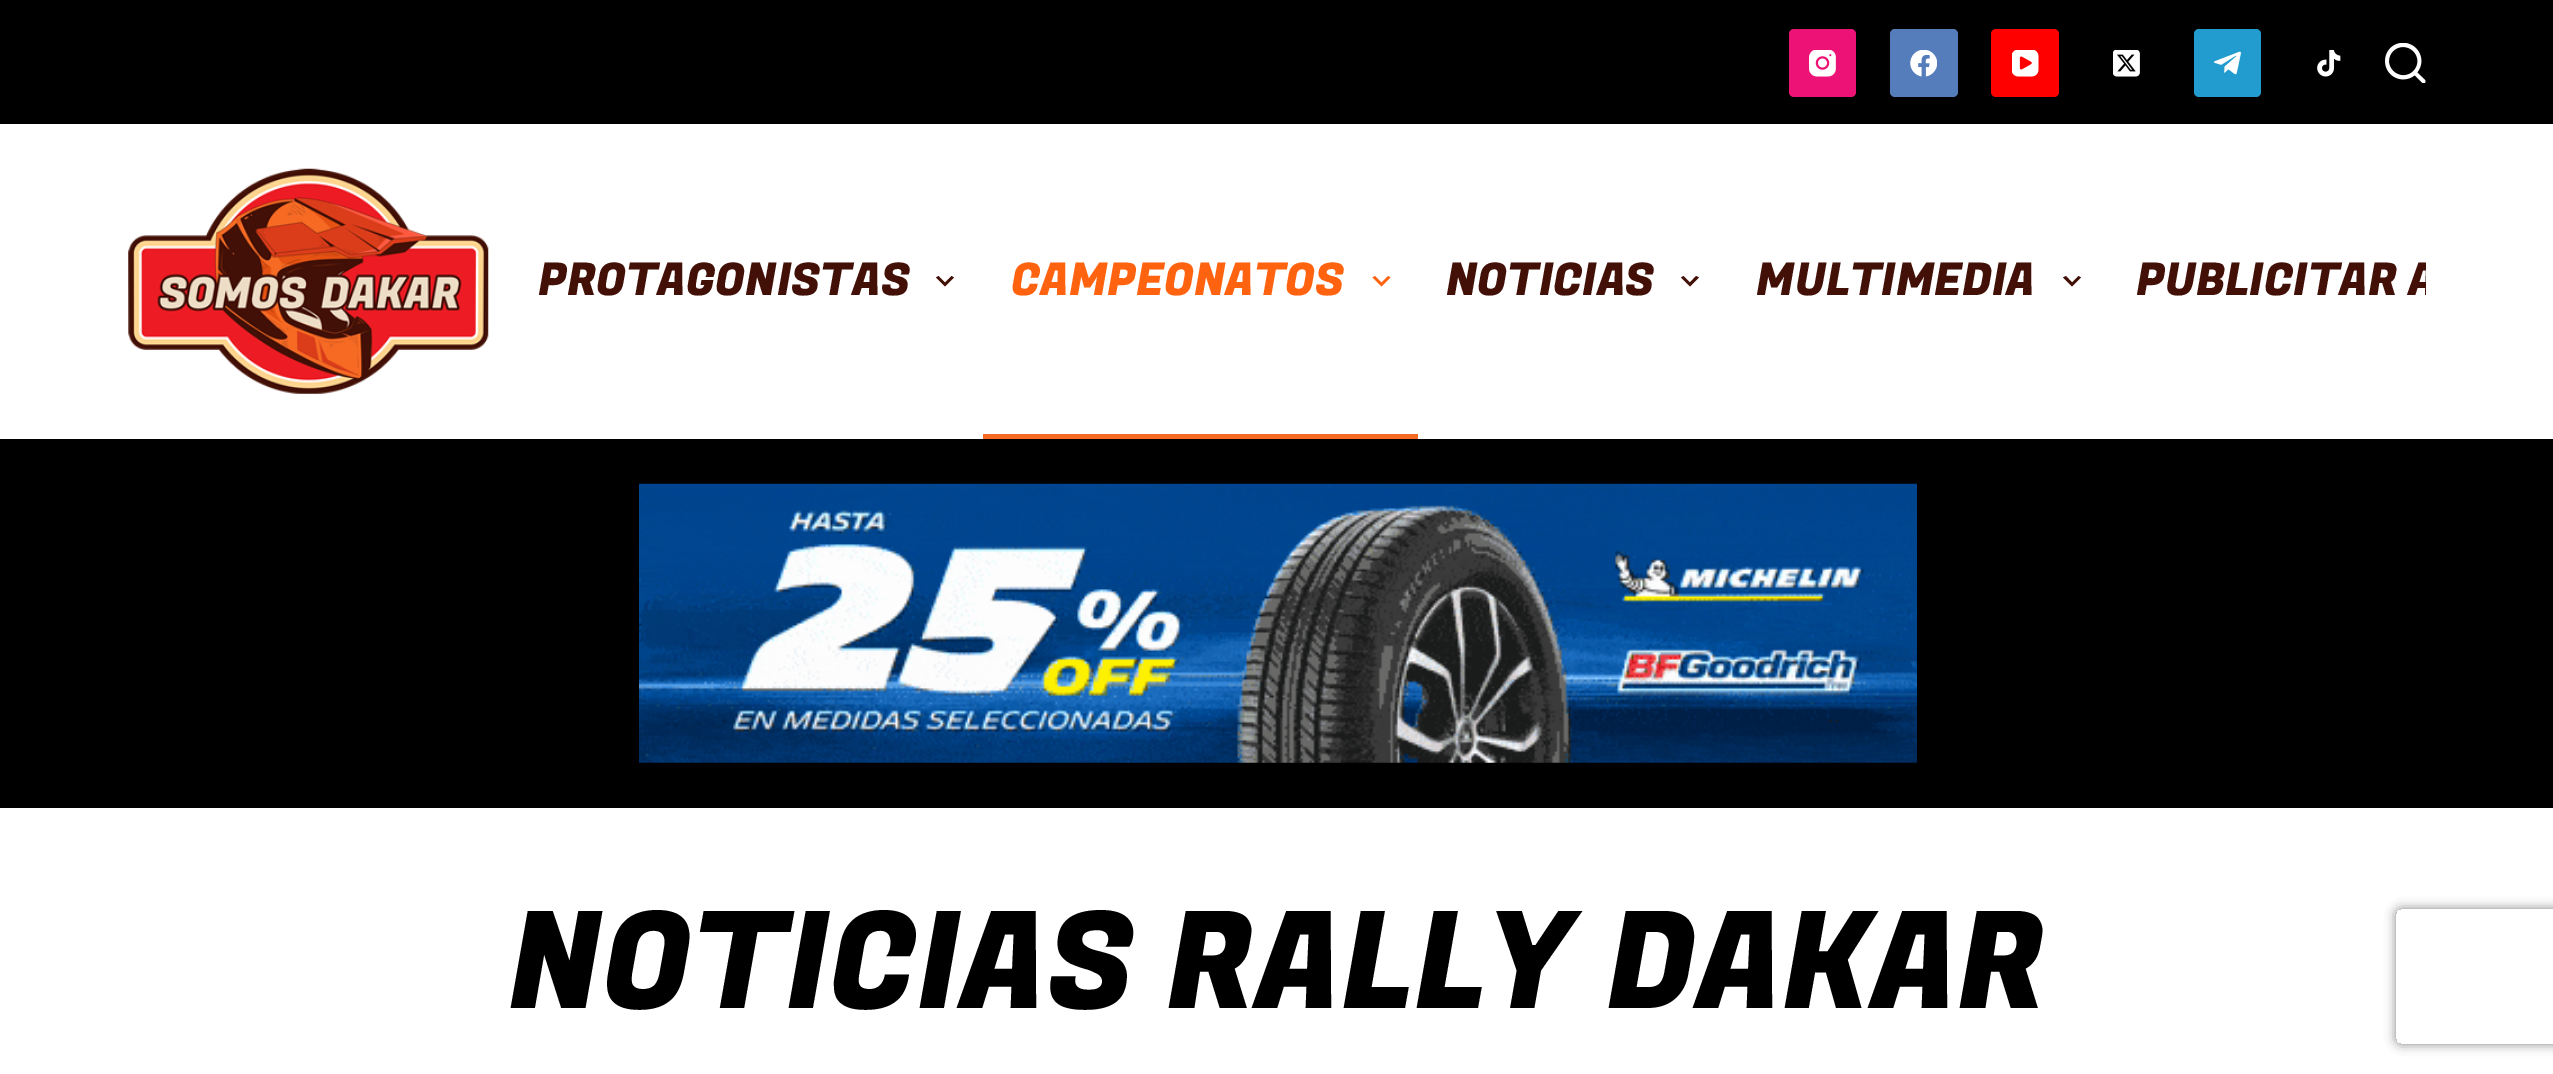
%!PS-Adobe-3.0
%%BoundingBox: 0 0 2553 1074
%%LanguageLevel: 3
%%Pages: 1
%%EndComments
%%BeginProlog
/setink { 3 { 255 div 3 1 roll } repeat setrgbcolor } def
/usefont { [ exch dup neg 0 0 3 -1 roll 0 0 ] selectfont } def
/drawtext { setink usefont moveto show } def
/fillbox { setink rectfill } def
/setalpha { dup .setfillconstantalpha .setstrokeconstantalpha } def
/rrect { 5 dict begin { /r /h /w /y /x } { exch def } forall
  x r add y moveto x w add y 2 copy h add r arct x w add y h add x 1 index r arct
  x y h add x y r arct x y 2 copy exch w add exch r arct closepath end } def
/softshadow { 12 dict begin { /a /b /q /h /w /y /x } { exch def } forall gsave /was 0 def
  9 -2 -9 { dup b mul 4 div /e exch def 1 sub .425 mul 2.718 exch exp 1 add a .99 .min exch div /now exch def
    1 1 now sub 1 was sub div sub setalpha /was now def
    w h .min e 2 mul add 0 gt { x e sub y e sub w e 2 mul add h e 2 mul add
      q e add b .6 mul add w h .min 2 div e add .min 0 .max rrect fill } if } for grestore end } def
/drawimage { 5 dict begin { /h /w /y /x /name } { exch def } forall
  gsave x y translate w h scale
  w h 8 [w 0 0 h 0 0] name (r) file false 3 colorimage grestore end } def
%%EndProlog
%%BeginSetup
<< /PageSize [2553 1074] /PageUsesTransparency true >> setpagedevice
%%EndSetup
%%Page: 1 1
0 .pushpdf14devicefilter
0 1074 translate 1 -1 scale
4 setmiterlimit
0 0 2553 1074 255 255 255 fillbox
0 0 2553 124 0 0 0 fillbox
237 19 118 setink
1789 29 67 68 5 rrect fill
(assets/img1.rgb) 1809 50 27 27 drawimage
85 125 188 setink
1890 29 68 68 5 rrect fill
(assets/img2.rgb) 1910 50 27 27 drawimage
255 0 0 setink
1991 29 68 68 5 rrect fill
(assets/img3.rgb) 2012 50 27 27 drawimage
(assets/img4.rgb) 2113 50 27 27 drawimage
34 156 206 setink
2194 29 67 68 5 rrect fill
(assets/img5.rgb) 2214 51 27 24 drawimage
(assets/img6.rgb) 2317 50 24 27 drawimage
(assets/img7.rgb) 2385 43 41 40 drawimage
(assets/img8.rgb) 128 168 361 226 drawimage
(PROTAGONISTAS) 538 295 /FugazOne-Regular 45 66 16 6 drawtext
938.5 276 moveto 945 282.5 lineto 951.5 276 lineto 954 277.5 lineto 945 286.5 lineto 936 277.5 lineto closepath fill
(CAMPEONATOS) 1011 295 /FugazOne-Regular 45 255 99 16 drawtext
1375 276 moveto 1381.5 282.5 lineto 1388 276 lineto 1390.5 277.5 lineto 1381.5 286.5 lineto 1372.5 277.5 lineto closepath fill
983 434 435 5 246 106 36 fillbox
(NOTICIAS) 1446 295 /FugazOne-Regular 45 66 16 6 drawtext
1683.5 276 moveto 1690 282.5 lineto 1696 276 lineto 1699 277.5 lineto 1690 286.5 lineto 1681 277.5 lineto closepath fill
(MULTIMEDIA) 1756 295 /FugazOne-Regular 45 66 16 6 drawtext
2066 276 moveto 2072 282.5 lineto 2078.5 276 lineto 2081 277.5 lineto 2072 286.5 lineto 2063 277.5 lineto closepath fill
gsave
511 124 1915 315 rectclip
(PUBLICITAR A) 2136 295 /FugazOne-Regular 45 66 16 6 drawtext
grestore
0 439 2553 369 0 0 0 fillbox
(assets/img9.rgb) 639 483 1278 280 drawimage
(NOTICIAS RALLY DAKAR) 508 1008 /FugazOne-Regular 135 0 0 0 drawtext
gsave
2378 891 moveto 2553 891 lineto 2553 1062 lineto 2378 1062 lineto closepath 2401 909 moveto 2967 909 lineto 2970 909 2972 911 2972 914 curveto 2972 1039 lineto 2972 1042 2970 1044 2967 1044 curveto 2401 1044 lineto 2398 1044 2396 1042 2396 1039 curveto 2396 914 lineto 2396 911 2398 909 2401 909 curveto closepath eoclip newpath
128 128 128 setink
2396 909 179 135 5 5.5 1 softshadow
grestore
.poppdf14devicefilter showpage
%%EOF
